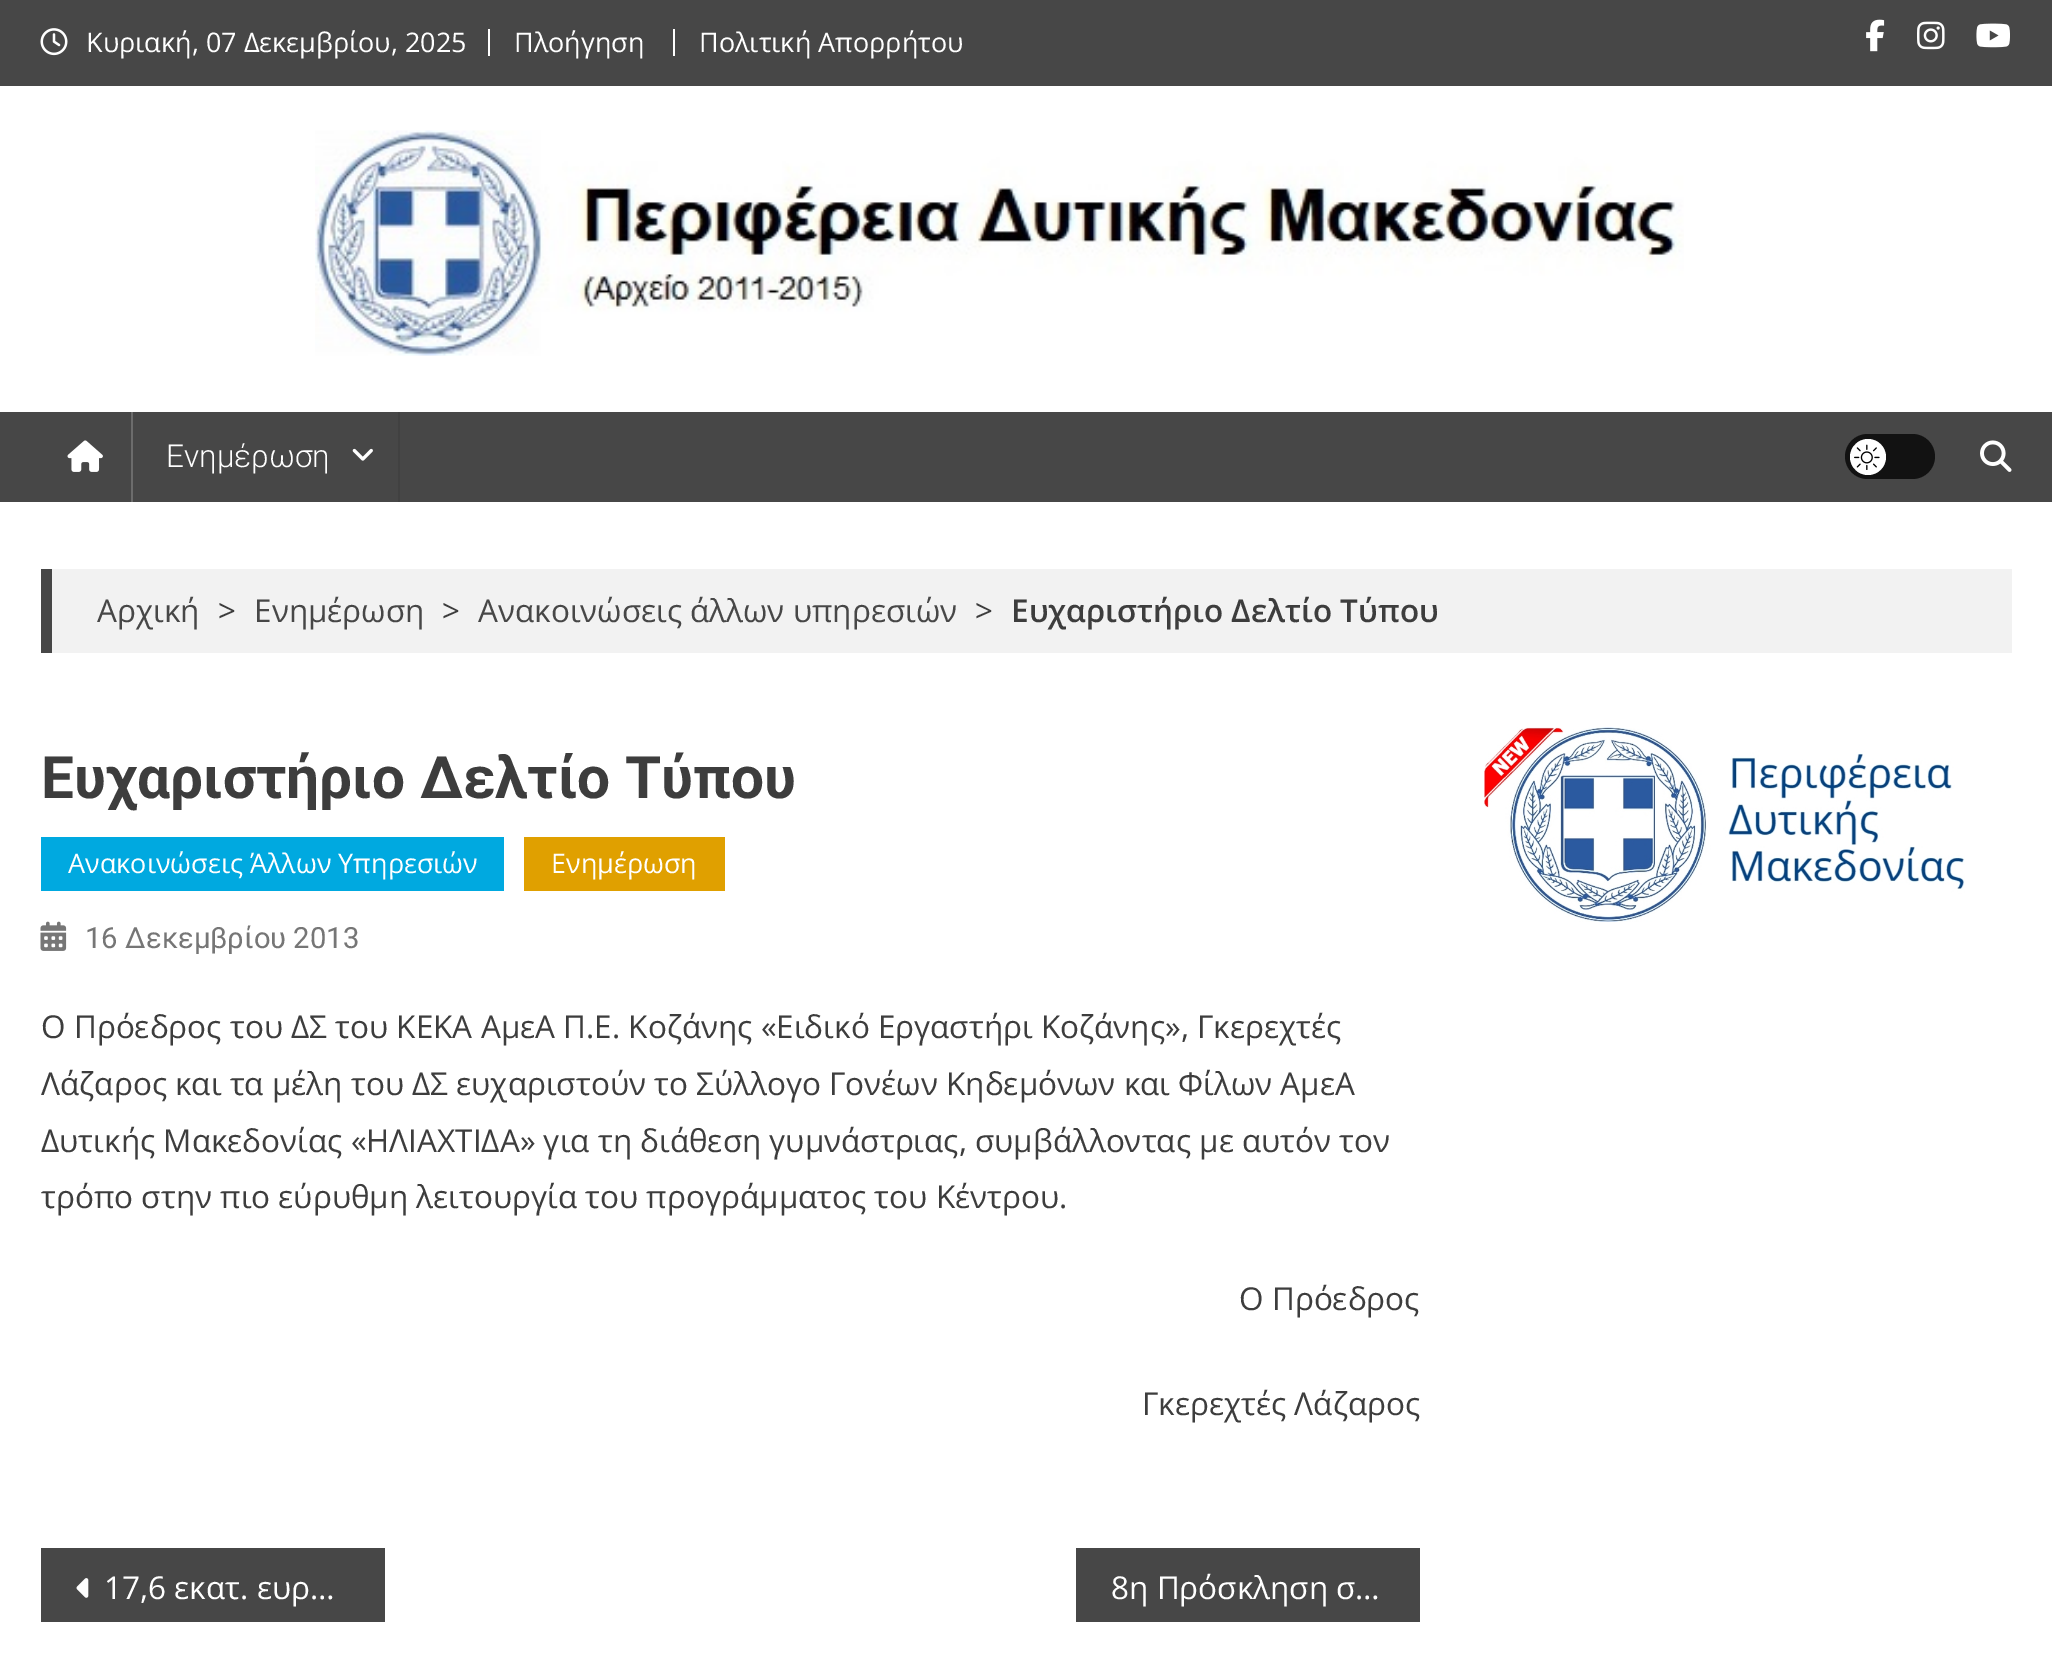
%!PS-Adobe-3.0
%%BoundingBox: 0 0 2052 1658
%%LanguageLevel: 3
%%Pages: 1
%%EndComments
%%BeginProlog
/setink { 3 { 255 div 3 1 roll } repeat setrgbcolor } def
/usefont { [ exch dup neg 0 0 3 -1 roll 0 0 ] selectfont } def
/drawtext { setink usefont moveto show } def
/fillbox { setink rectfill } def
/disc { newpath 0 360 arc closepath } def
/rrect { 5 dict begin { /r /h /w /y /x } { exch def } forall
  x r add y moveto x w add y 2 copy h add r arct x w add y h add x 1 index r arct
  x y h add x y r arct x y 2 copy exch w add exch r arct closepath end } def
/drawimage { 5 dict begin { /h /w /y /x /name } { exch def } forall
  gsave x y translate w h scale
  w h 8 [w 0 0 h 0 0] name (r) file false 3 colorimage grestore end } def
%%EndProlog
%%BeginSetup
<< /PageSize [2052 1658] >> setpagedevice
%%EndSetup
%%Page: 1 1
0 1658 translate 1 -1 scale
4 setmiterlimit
0 0 2052 1658 255 255 255 fillbox
0 0 2052 86 71 71 71 fillbox
(assets/img1.rgb) 40 28 28 28 drawimage
(Κυριακή, 07 Δεκεμβρίου, 2025) 86 52 /OpenSans-Regular 27 255 255 255 drawtext
488 29 2 27 255 255 255 fillbox
(Πλοήγηση) 514 52 /OpenSans-Regular 27 255 255 255 drawtext
673 29 2 27 255 255 255 fillbox
(Πολιτική Απορρήτου) 699 52 /OpenSans-Regular 27 255 255 255 drawtext
(assets/img2.rgb) 1866 19 19 33 drawimage
(assets/img3.rgb) 1917 21 28 29 drawimage
(assets/img4.rgb) 1976 23 34 25 drawimage
(assets/img5.rgb) 315 130 1369 226 drawimage
0 412 2052 90 71 71 71 fillbox
(assets/img6.rgb) 67 440 36 32 drawimage
398 412 2 90 65 65 65 fillbox
131 412 2 90 108 108 108 fillbox
(Ενημέρωση) 166 467 /Roboto-Light 31.5 255 255 255 drawtext
(assets/img7.rgb) 352 448 21 13 drawimage
18 18 18 setink
1845 434 90 45 22.5 rrect fill
255 255 255 setink
1868 457 18 disc fill
(assets/img8.rgb) 1854 444 26 26 drawimage
(assets/img9.rgb) 1980 440 32 32 drawimage
52 569 1960 84 242 242 242 fillbox
41 569 11 84 71 71 71 fillbox
(Αρχική) 97 622 /OpenSans-Regular 31.5 71 71 71 drawtext
(>) 218 622 /OpenSans-Regular 31.5 61 61 61 drawtext
(Ενημέρωση) 254 622 /OpenSans-Regular 31.5 71 71 71 drawtext
(>) 442 622 /OpenSans-Regular 31.5 61 61 61 drawtext
(Ανακοινώσεις άλλων υπηρεσιών) 478 622 /OpenSans-Regular 31.5 71 71 71 drawtext
(>) 975 622 /OpenSans-Regular 31.5 61 61 61 drawtext
(Ευχαριστήριο Δελτίο Τύπου) 1011 622 /OpenSans-SemiBold 31.5 61 61 61 drawtext
(Ευχαριστήριο Δελτίο Τύπου) 41 798 /Roboto-Bold 58.5 61 61 61 drawtext
41 837 463 54 0 169 224 fillbox
(Ανακοινώσεις Άλλων Υπηρεσιών) 68 873 /OpenSans-Regular 27 255 255 255 drawtext
524 837 201 54 224 160 0 fillbox
(Ενημέρωση) 551 873 /OpenSans-Regular 27 255 255 255 drawtext
(assets/img10.rgb) 40 921 27 30 drawimage
(16 Δεκεμβρίου 2013) 85 948 /Roboto-Regular 29.25 118 118 118 drawtext
(Ο Πρόεδρος του ΔΣ του ΚΕΚΑ ΑμεΑ Π.Ε. Κοζάνης «Ειδικό Εργαστήρι Κοζάνης», Γκερεχτές) 41 1038 /OpenSans-Regular 31.5 61 61 61 drawtext
(Λάζαρος και τα μέλη του ΔΣ ευχαριστούν το Σύλλογο Γονέων Κηδεμόνων και Φίλων ΑμεΑ) 41 1095 /OpenSans-Regular 31.5 61 61 61 drawtext
(Δυτικής Μακεδονίας «ΗΛΙΑΧΤΙΔΑ» για τη διάθεση γυμνάστριας, συμβάλλοντας με αυτόν τον) 41 1152 /OpenSans-Regular 31.5 61 61 61 drawtext
(τρόπο στην πιο εύρυθμη λειτουργία του προγράμματος του Κέντρου.) 41 1208 /OpenSans-Regular 31.5 61 61 61 drawtext
(Ο Πρόεδρος) 1239 1310 /OpenSans-Regular 31.5 61 61 61 drawtext
(Γκερεχτές Λάζαρος) 1142 1415 /OpenSans-Regular 31.5 61 61 61 drawtext
41 1548 344 74 71 71 71 fillbox
(assets/img11.rgb) 76 1578 13 20 drawimage
(17,6 εκατ. ευρ…) 104 1599 /OpenSans-Regular 31.5 255 255 255 drawtext
1076 1548 344 74 71 71 71 fillbox
(8η Πρόσκληση σ…) 1111 1599 /OpenSans-Regular 31.5 255 255 255 drawtext
(assets/img12.rgb) 1484 727 481 195 drawimage
showpage
%%EOF
